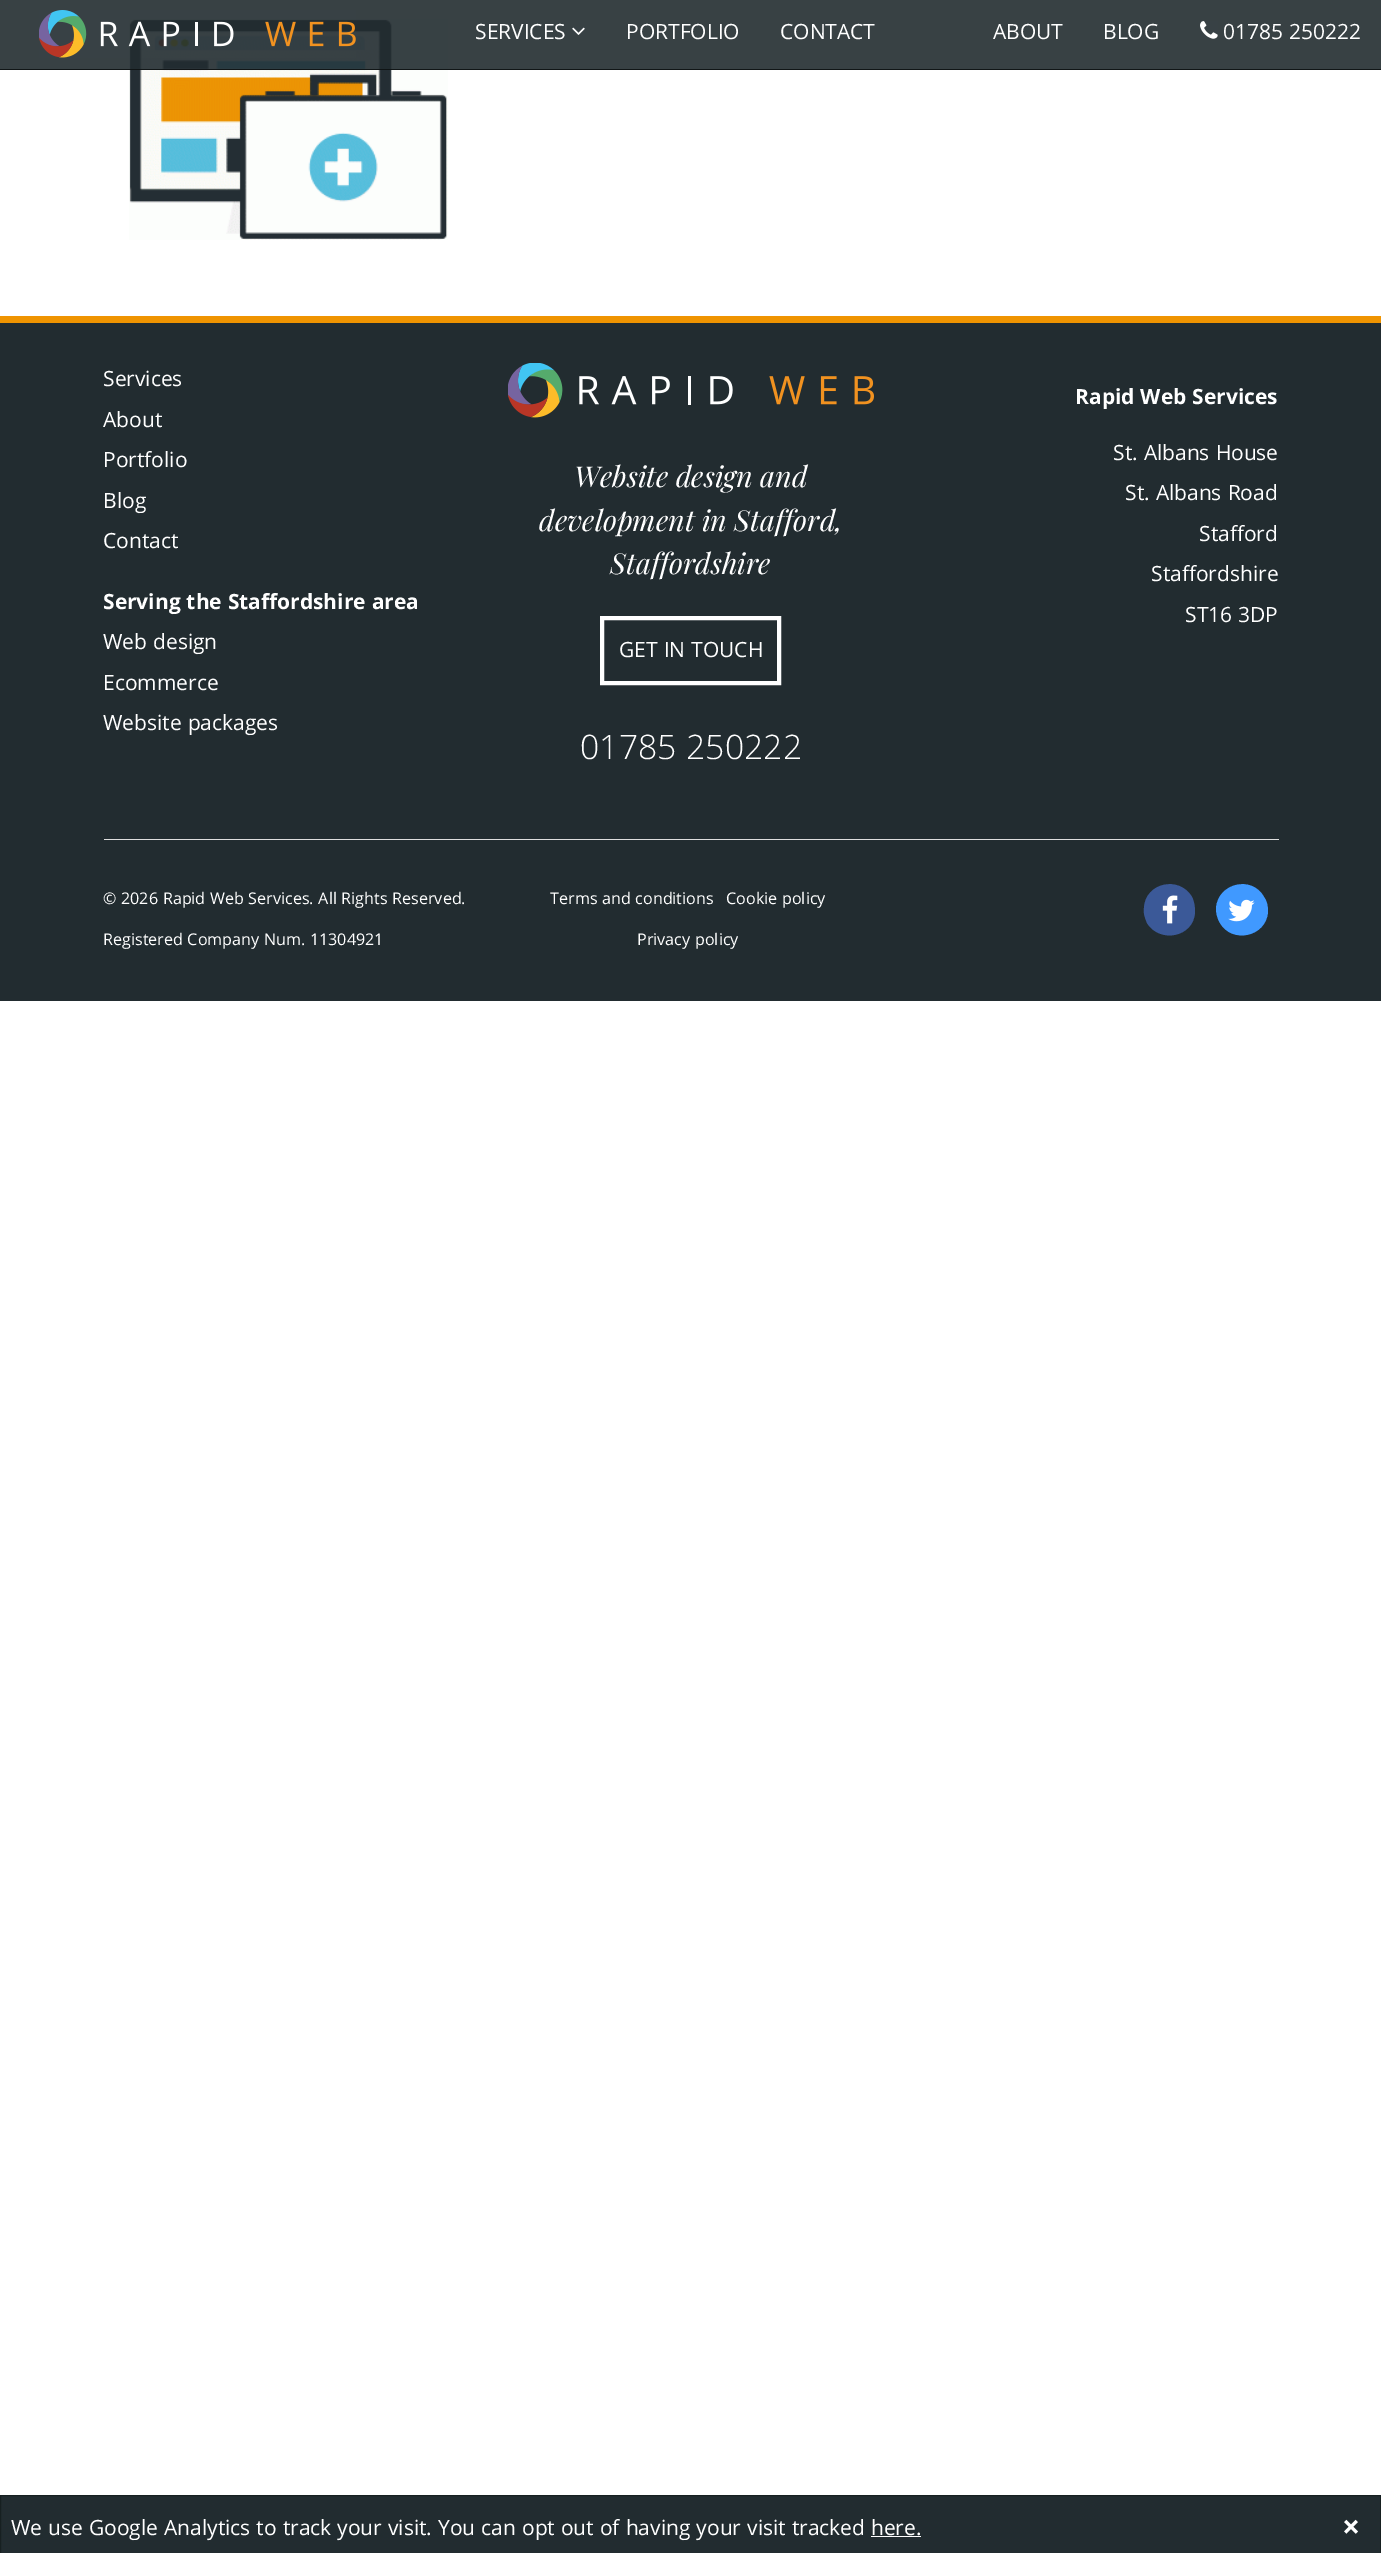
%!PS-Adobe-3.0
%%BoundingBox: 0 0 1381 2553
%%LanguageLevel: 3
%%Pages: 1
%%EndComments
%%BeginProlog
/setink { 3 { 255 div 3 1 roll } repeat setrgbcolor } def
/usefont { [ exch dup neg 0 0 3 -1 roll 0 0 ] selectfont } def
/drawtext { setink usefont moveto show } def
/fillbox { setink rectfill } def
/setalpha { dup .setfillconstantalpha .setstrokeconstantalpha } def
/drawimage { 5 dict begin { /h /w /y /x /name } { exch def } forall
  gsave x y translate w h scale
  w h 8 [w 0 0 h 0 0] name (r) file false 3 colorimage grestore end } def
%%EndProlog
%%BeginSetup
<< /PageSize [1381 2553] /PageUsesTransparency true >> setpagedevice
%%EndSetup
%%Page: 1 1
0 .pushpdf14devicefilter
0 2553 translate 1 -1 scale
4 setmiterlimit
0 0 1381 2553 255 255 255 fillbox
(assets/img1.rgb) 129 19 319 221 drawimage
0.9 setalpha
0 0 1381 70 34 44 48 fillbox
0 69 1381 1 13 17 18 fillbox
1 setalpha
(assets/img2.rgb) 39 10 317 48 drawimage
(SERVICES) 475 39 /Khula-Regular 22.5 255 255 255 drawtext
(assets/img3.rgb) 572 27 13 8 drawimage
(PORTFOLIO) 626 39 /Khula-Regular 22.5 255 255 255 drawtext
(CONTACT) 780 39 /Khula-Regular 22.5 255 255 255 drawtext
(ABOUT) 993 39 /Khula-Regular 22.5 255 255 255 drawtext
(BLOG) 1103 39 /Khula-Regular 22.5 255 255 255 drawtext
(assets/img4.rgb) 1200 21 18 18 drawimage
(01785 250222) 1223 39 /Khula-Regular 22.5 255 255 255 drawtext
0 323 1381 678 34 44 48 fillbox
0 316 1381 7 239 148 1 fillbox
(Services) 103 386 /Khula-Regular 22.5 255 255 255 drawtext
(About) 103 427 /Khula-Regular 22.5 255 255 255 drawtext
(Portfolio) 103 467 /Khula-Regular 22.5 255 255 255 drawtext
(Blog) 103 508 /Khula-Regular 22.5 255 255 255 drawtext
(Contact) 103 548 /Khula-Regular 22.5 255 255 255 drawtext
(Serving the Staffordshire area) 103 609 /Khula-Bold 22.5 255 255 255 drawtext
(Web design) 103 649 /Khula-Regular 22.5 255 255 255 drawtext
(Ecommerce) 103 690 /Khula-Regular 22.5 255 255 255 drawtext
(Website packages) 103 730 /Khula-Regular 22.5 255 255 255 drawtext
(assets/img5.rgb) 508 363 366 55 drawimage
(Website design and) 574 487 /PlayfairDisplay-Italic 28.75 255 255 255 drawtext
(development in Stafford,) 539 531 /PlayfairDisplay-Italic 28.75 255 255 255 drawtext
(Staffordshire) 610 574 /PlayfairDisplay-Italic 28.75 255 255 255 drawtext
4 setlinewidth
602 618 177 65 rectstroke
(GET IN TOUCH) 619 657 /Khula-Regular 22.5 255 255 255 drawtext
(01785 250222) 580 759 /Khula-Light 36.25 255 255 255 drawtext
(Rapid Web Services) 1075 404 /Khula-Bold 22.5 255 255 255 drawtext
(St. Albans House) 1113 460 /Khula-Regular 22.5 255 255 255 drawtext
(St. Albans Road) 1125 500 /Khula-Regular 22.5 255 255 255 drawtext
(Stafford) 1199 541 /Khula-Regular 22.5 255 255 255 drawtext
(Staffordshire) 1151 581 /Khula-Regular 22.5 255 255 255 drawtext
(ST16 3DP) 1185 622 /Khula-Regular 22.5 255 255 255 drawtext
104 839 1175 1 222 222 222 fillbox
(© 2026 Rapid Web Services. All Rights Reserved.) 103 904 /Khula-Regular 17.3 255 255 255 drawtext
(Registered Company Num. 11304921) 103 945 /Khula-Regular 17.3 255 255 255 drawtext
(Terms and conditions) 550 904 /Khula-Regular 17.3 255 255 255 drawtext
(Cookie policy) 726 904 /Khula-Regular 17.3 255 255 255 drawtext
(Privacy policy) 637 945 /Khula-Regular 17.3 255 255 255 drawtext
59 89 152 setink
1192 897 moveto 1194 901 1195 906 1195 912 curveto 1194 937 1160 944 1147 923 curveto 1145 918 1143 913 1144 908 curveto 1145 883 1179 875 1192 897 curveto closepath fill
(assets/img6.rgb) 1162 895 16 29 drawimage
64 153 255 setink
1264 897 moveto 1267 901 1268 906 1268 912 curveto 1266 937 1232 944 1220 923 curveto 1217 918 1216 913 1216 908 curveto 1218 883 1252 875 1264 897 curveto closepath fill
(assets/img7.rgb) 1228 899 27 23 drawimage
34 44 48 setink
0.5 2495.5 moveto 1380.5 2495.5 lineto 1380.5 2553.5 lineto 0.5 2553.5 lineto closepath gsave fill grestore
23 32 33 setink
1 setlinewidth
stroke
(We use Google Analytics to track your visit. You can opt out of having your visit tracked here.) 11 2535 /Khula-Regular 22.5 255 255 255 drawtext
(×) 1342 2538 /Khula-Bold 34 255 255 255 drawtext
871 2536 50 1 255 255 255 fillbox
.poppdf14devicefilter showpage
%%EOF
